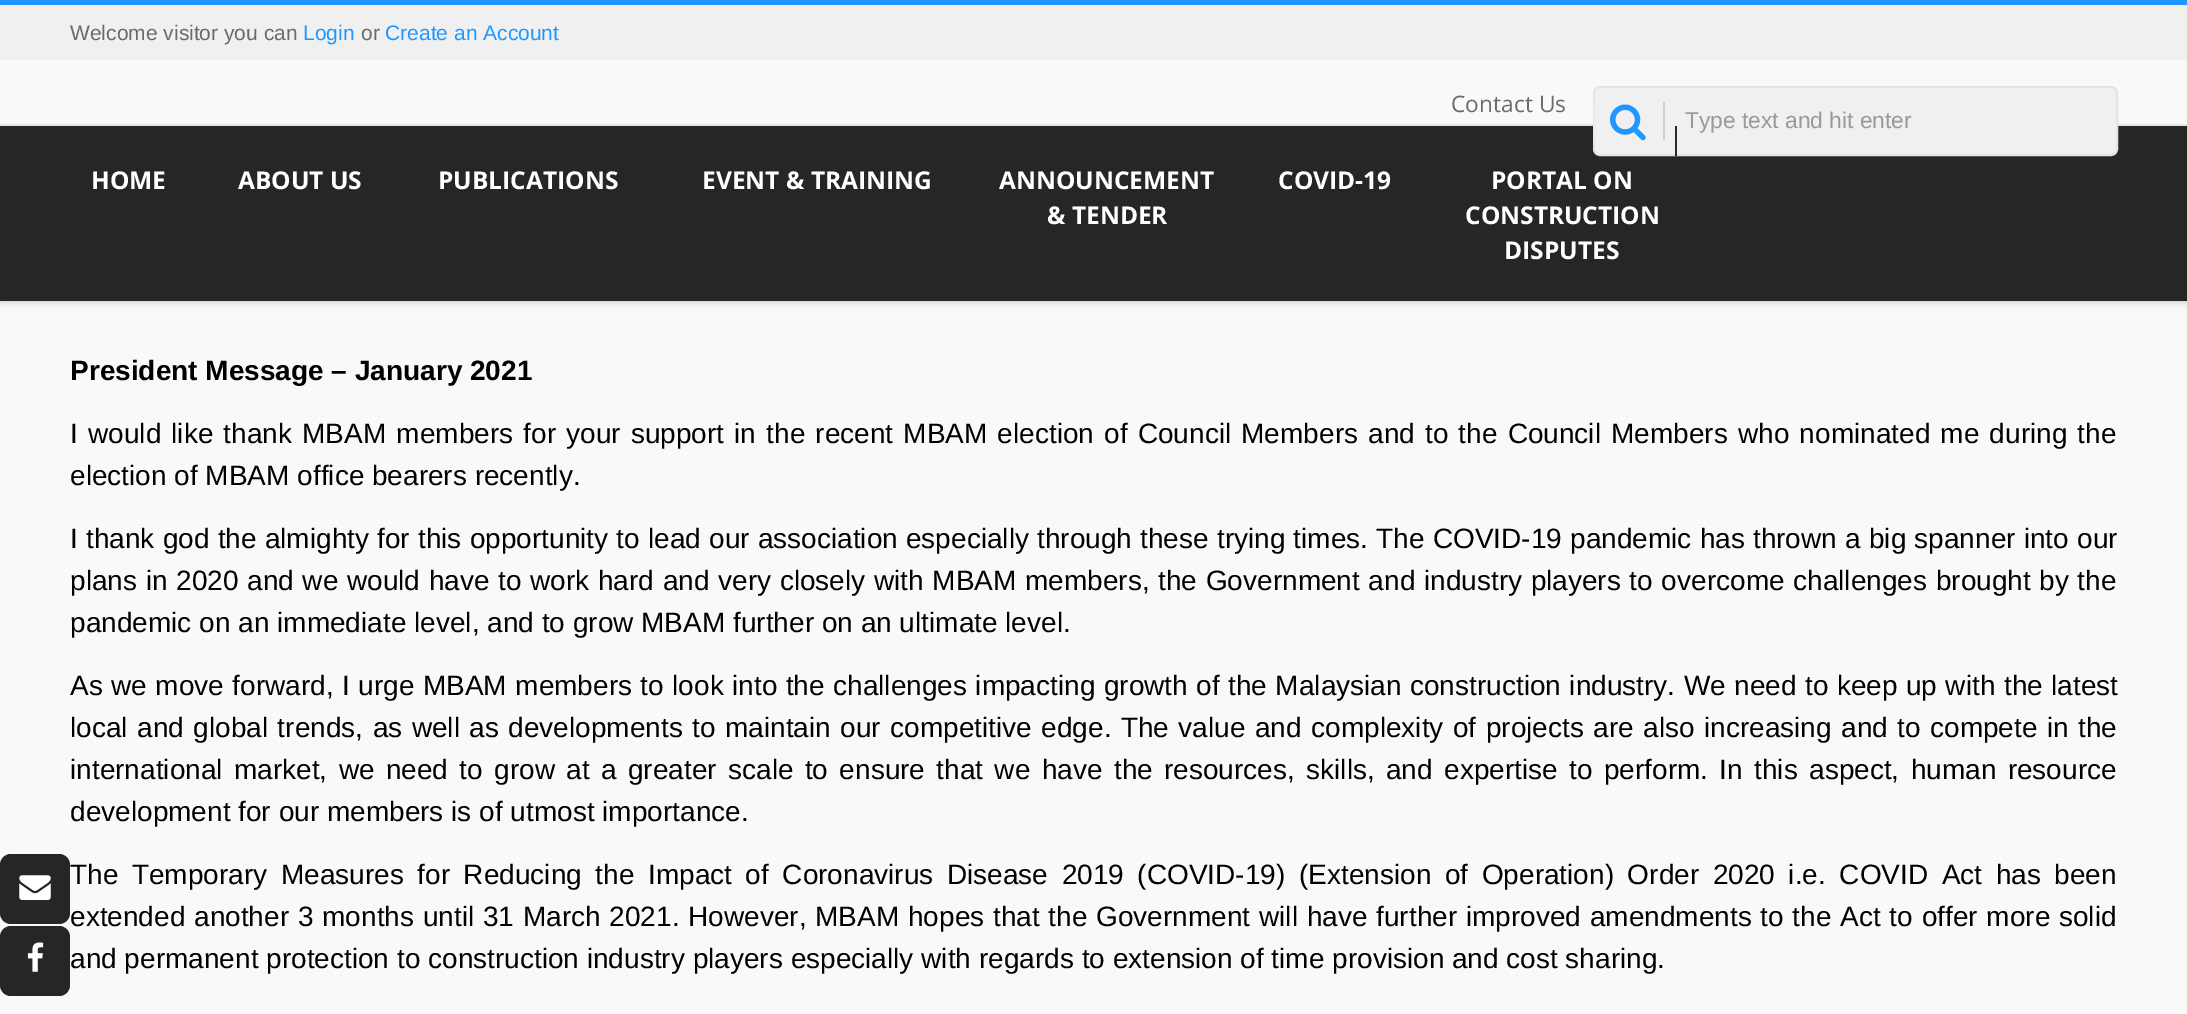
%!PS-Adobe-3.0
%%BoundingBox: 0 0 2187 1014
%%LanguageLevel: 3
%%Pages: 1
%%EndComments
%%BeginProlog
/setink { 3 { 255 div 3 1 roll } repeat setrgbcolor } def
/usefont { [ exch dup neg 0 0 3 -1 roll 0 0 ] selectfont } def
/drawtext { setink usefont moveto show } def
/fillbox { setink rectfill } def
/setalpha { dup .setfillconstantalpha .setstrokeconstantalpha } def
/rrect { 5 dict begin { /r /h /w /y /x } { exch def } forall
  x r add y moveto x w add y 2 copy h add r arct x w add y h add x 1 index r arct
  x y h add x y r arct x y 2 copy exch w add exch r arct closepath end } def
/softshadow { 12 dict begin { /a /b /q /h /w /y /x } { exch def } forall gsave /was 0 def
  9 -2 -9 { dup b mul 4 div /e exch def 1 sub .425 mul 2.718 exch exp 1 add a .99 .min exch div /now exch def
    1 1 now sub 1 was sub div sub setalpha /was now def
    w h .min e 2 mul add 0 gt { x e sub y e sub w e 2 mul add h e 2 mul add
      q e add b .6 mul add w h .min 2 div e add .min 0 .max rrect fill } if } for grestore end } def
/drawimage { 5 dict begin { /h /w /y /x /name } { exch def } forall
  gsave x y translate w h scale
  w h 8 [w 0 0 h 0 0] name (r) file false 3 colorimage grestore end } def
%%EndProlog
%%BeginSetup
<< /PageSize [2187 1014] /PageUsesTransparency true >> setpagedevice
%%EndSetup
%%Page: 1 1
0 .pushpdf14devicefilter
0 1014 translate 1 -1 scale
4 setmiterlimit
0 0 2187 1014 249 249 249 fillbox
0 0 0 setink
0 60 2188 241 0 3.5 0.25 softshadow
0 5 2187 55 240 240 240 fillbox
0 0 2187 5 31 151 255 fillbox
(Welcome visitor you can) 70 40 /LiberationSans-Regular 21 106 106 106 drawtext
(Login) 303 40 /LiberationSans-Regular 21 31 151 255 drawtext
(or) 361 40 /LiberationSans-Regular 21 106 106 106 drawtext
(Create an Account) 385 40 /LiberationSans-Regular 21 31 151 255 drawtext
0 60 2187 64 249 249 249 fillbox
(Contact Us) 1451 112 /OpenSans-Regular 22.75 106 106 106 drawtext
0 126 2187 175 38 38 38 fillbox
0 124 2187 2 228 228 228 fillbox
240 240 240 setink
1594 87 523 68 6 rrect gsave fill grestore
228 228 228 setink
2 setlinewidth
stroke
1663 102 2 38 209 209 209 fillbox
(assets/img1.rgb) 1610 104 36 37 drawimage
1594 103 1 39 240 240 240 fillbox
(Type text and hit enter) 1685 128 /LiberationSans-Regular 22.75 153 153 153 drawtext
(HOME) 91 189 /OpenSans-Bold 24.5 255 255 255 drawtext
(ABOUT US) 238 189 /OpenSans-Bold 24.5 255 255 255 drawtext
(PUBLICATIONS) 438 189 /OpenSans-Bold 24.5 255 255 255 drawtext
(EVENT & TRAINING) 702 189 /OpenSans-Bold 24.5 255 255 255 drawtext
(ANNOUNCEMENT) 999 189 /OpenSans-Bold 24.5 255 255 255 drawtext
(& TENDER) 1047 224 /OpenSans-Bold 24.5 255 255 255 drawtext
(COVID-19) 1278 189 /OpenSans-Bold 24.5 255 255 255 drawtext
1675 126 2 30 40 40 40 fillbox
(PORTAL ON) 1491 189 /OpenSans-Bold 24.5 255 255 255 drawtext
(CONSTRUCTION) 1465 224 /OpenSans-Bold 24.5 255 255 255 drawtext
(DISPUTES) 1504 259 /OpenSans-Bold 24.5 255 255 255 drawtext
38 38 38 setink
0 854 70 70 11 rrect fill
(assets/img2.rgb) 19 875 32 25 drawimage
0 926 70 70 11 rrect fill
(assets/img3.rgb) 27 942 17 30 drawimage
(President Message – January 2021) 70 380 /LiberationSans-Bold 28 0 0 0 drawtext
/LiberationSans-Regular 28 usefont
70 443 moveto 2.4 0 32 (I would like thank MBAM members for your support in the recent MBAM election of Council Members and to the Council Members who nominated me during the) widthshow
(election of MBAM office bearers recently.) 70 485 /LiberationSans-Regular 28 0 0 0 drawtext
70 548 moveto 0.4 0 32 (I thank god the almighty for this opportunity to lead our association especially through these trying times. The COVID-19 pandemic has thrown a big spanner into our) widthshow
70 590 moveto 0.9 0 32 (plans in 2020 and we would have to work hard and very closely with MBAM members, the Government and industry players to overcome challenges brought by the) widthshow
(pandemic on an immediate level, and to grow MBAM further on an ultimate level.) 70 632 /LiberationSans-Regular 28 0 0 0 drawtext
70 695 moveto 0.7 0 32 (As we move forward, I urge MBAM members to look into the challenges impacting growth of the Malaysian construction industry. We need to keep up with the latest) widthshow
70 737 moveto 1.7 0 32 (local and global trends, as well as developments to maintain our competitive edge. The value and complexity of projects are also increasing and to compete in the) widthshow
70 779 moveto 3.6 0 32 (international market, we need to grow at a greater scale to ensure that we have the resources, skills, and expertise to perform. In this aspect, human resource) widthshow
(development for our members is of utmost importance.) 70 821 /LiberationSans-Regular 28 0 0 0 drawtext
70 884 moveto 5.8 0 32 (The Temporary Measures for Reducing the Impact of Coronavirus Disease 2019 \(COVID-19\) \(Extension of Operation\) Order 2020 i.e. COVID Act has been) widthshow
70 926 moveto 1 0 32 (extended another 3 months until 31 March 2021. However, MBAM hopes that the Government will have further improved amendments to the Act to offer more solid) widthshow
(and permanent protection to construction industry players especially with regards to extension of time provision and cost sharing.) 70 968 /LiberationSans-Regular 28 0 0 0 drawtext
.poppdf14devicefilter showpage
%%EOF
